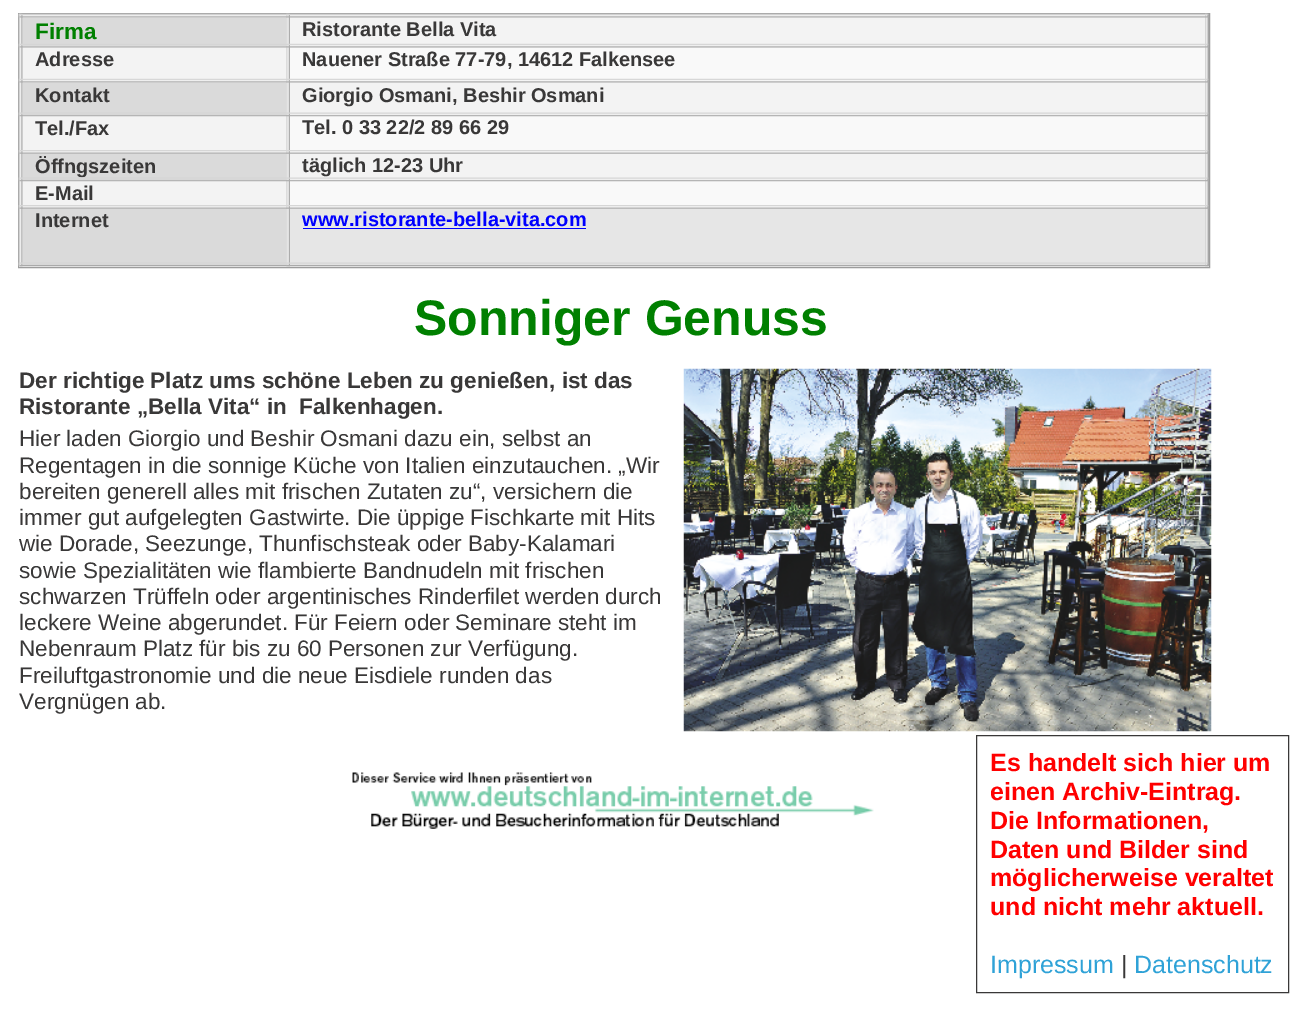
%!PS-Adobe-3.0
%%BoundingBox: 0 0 1307 1011
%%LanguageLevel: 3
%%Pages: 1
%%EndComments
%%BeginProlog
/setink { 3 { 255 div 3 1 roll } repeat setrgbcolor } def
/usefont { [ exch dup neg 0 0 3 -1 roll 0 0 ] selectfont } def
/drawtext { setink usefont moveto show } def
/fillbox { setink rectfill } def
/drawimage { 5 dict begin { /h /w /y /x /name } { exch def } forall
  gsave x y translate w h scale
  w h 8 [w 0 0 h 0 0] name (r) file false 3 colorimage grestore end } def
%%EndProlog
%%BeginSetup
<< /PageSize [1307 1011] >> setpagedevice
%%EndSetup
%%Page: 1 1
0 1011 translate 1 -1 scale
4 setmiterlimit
0 0 1307 1011 255 255 255 fillbox
19 15 1190 252 240 240 240 fillbox
156 156 156 setink
18.5 13.5 1191 254 rectstroke
19.5 14.5 1189 251 rectstroke
(assets/img1.rgb) 18 13 5 254 drawimage
(assets/img3.rgb) 286 13 4 254 drawimage
(assets/img4.rgb) 1205 13 4 254 drawimage
(assets/img2.rgb) 18 13 1191 5 drawimage
23 18 263 28 218 218 218 fillbox
(Firma) 35 39 /LiberationSans-Bold 22.5 0 128 0 drawtext
290 18 915 28 243 243 243 fillbox
(Ristorante Bella Vita) 302 36 /LiberationSans-Bold 20 57 56 56 drawtext
(assets/img5.rgb) 18 43 1191 5 drawimage
23 48 263 33 243 243 243 fillbox
(Adresse) 35 66 /LiberationSans-Bold 20 57 56 56 drawtext
290 48 915 33 249 249 249 fillbox
(Nauener Straße 77-79, 14612 Falkensee) 302 66 /LiberationSans-Bold 20 57 56 56 drawtext
(assets/img6.rgb) 18 78 1191 5 drawimage
23 83 263 32 218 218 218 fillbox
(Kontakt) 35 102 /LiberationSans-Bold 20 57 56 56 drawtext
290 83 915 32 243 243 243 fillbox
(Giorgio Osmani, Beshir Osmani) 302 102 /LiberationSans-Bold 20 57 56 56 drawtext
23 116 263 37 243 243 243 fillbox
290 116 915 37 249 249 249 fillbox
(assets/img7.rgb) 18 112 1191 5 drawimage
(Tel./Fax) 35 135 /LiberationSans-Bold 20 57 56 56 drawtext
(Tel. 0 33 22/2 89 66 29) 302 134 /LiberationSans-Bold 20 57 56 56 drawtext
(assets/img8.rgb) 18 150 1191 4 drawimage
23 154 263 26 218 218 218 fillbox
(Öffngszeiten) 35 173 /LiberationSans-Bold 20 57 56 56 drawtext
290 154 915 26 243 243 243 fillbox
(täglich 12-23 Uhr) 302 172 /LiberationSans-Bold 20 57 56 56 drawtext
23 181 263 27 243 243 243 fillbox
290 181 915 27 249 249 249 fillbox
(assets/img9.rgb) 18 177 1191 5 drawimage
(E-Mail) 35 200 /LiberationSans-Bold 20 57 56 56 drawtext
(assets/img8.rgb) 18 205 1191 4 drawimage
23 209 263 56 218 218 218 fillbox
(Internet) 35 227 /LiberationSans-Bold 20 57 56 56 drawtext
290 209 915 56 230 230 230 fillbox
(www.ristorante-bella-vita.com) 302 226 /LiberationSans-Bold 20 0 0 255 drawtext
303 228 283 1 0 0 255 fillbox
(assets/img10.rgb) 18 262 1191 5 drawimage
(Sonniger Genuss) 414 335 /LiberationSans-Bold 50 0 128 0 drawtext
(Der richtige Platz ums schöne Leben zu genießen, ist das) 19 388 /LiberationSans-Bold 22.5 57 56 56 drawtext
(Ristorante „Bella Vita“ in  Falkenhagen.) 19 414 /LiberationSans-Bold 22.5 57 56 56 drawtext
(Hier laden Giorgio und Beshir Osmani dazu ein, selbst an) 19 446 /LiberationSans-Regular 22.5 57 56 56 drawtext
(Regentagen in die sonnige Küche von Italien einzutauchen. „Wir) 19 473 /LiberationSans-Regular 22.5 57 56 56 drawtext
(bereiten generell alles mit frischen Zutaten zu“, versichern die) 19 499 /LiberationSans-Regular 22.5 57 56 56 drawtext
(immer gut aufgelegten Gastwirte. Die üppige Fischkarte mit Hits) 19 525 /LiberationSans-Regular 22.5 57 56 56 drawtext
(wie Dorade, Seezunge, Thunfischsteak oder Baby-Kalamari) 19 551 /LiberationSans-Regular 22.5 57 56 56 drawtext
(sowie Spezialitäten wie flambierte Bandnudeln mit frischen) 19 578 /LiberationSans-Regular 22.5 57 56 56 drawtext
(schwarzen Trüffeln oder argentinisches Rinderfilet werden durch) 19 604 /LiberationSans-Regular 22.5 57 56 56 drawtext
(leckere Weine abgerundet. Für Feiern oder Seminare steht im) 19 630 /LiberationSans-Regular 22.5 57 56 56 drawtext
(Nebenraum Platz für bis zu 60 Personen zur Verfügung.) 19 656 /LiberationSans-Regular 22.5 57 56 56 drawtext
(Freiluftgastronomie und die neue Eisdiele runden das) 19 683 /LiberationSans-Regular 22.5 57 56 56 drawtext
(Vergnügen ab.) 19 709 /LiberationSans-Regular 22.5 57 56 56 drawtext
(assets/img11.rgb) 683 368 529 364 drawimage
(assets/img12.rgb) 352 772 522 57 drawimage
976.5 735.5 312 257 rectstroke
(Es handelt sich hier um) 990 771 /LiberationSans-Bold 25 255 0 0 drawtext
(einen Archiv-Eintrag.) 990 800 /LiberationSans-Bold 25 255 0 0 drawtext
(Die Informationen,) 990 829 /LiberationSans-Bold 25 255 0 0 drawtext
(Daten und Bilder sind) 990 858 /LiberationSans-Bold 25 255 0 0 drawtext
(möglicherweise veraltet) 990 886 /LiberationSans-Bold 25 255 0 0 drawtext
(und nicht mehr aktuell.) 990 915 /LiberationSans-Bold 25 255 0 0 drawtext
(Impressum) 990 973 /LiberationSans-Regular 25 47 162 215 drawtext
(|) 1121 973 /LiberationSans-Regular 25 57 56 56 drawtext
(Datenschutz) 1134 973 /LiberationSans-Regular 25 47 162 215 drawtext
showpage
%%EOF
